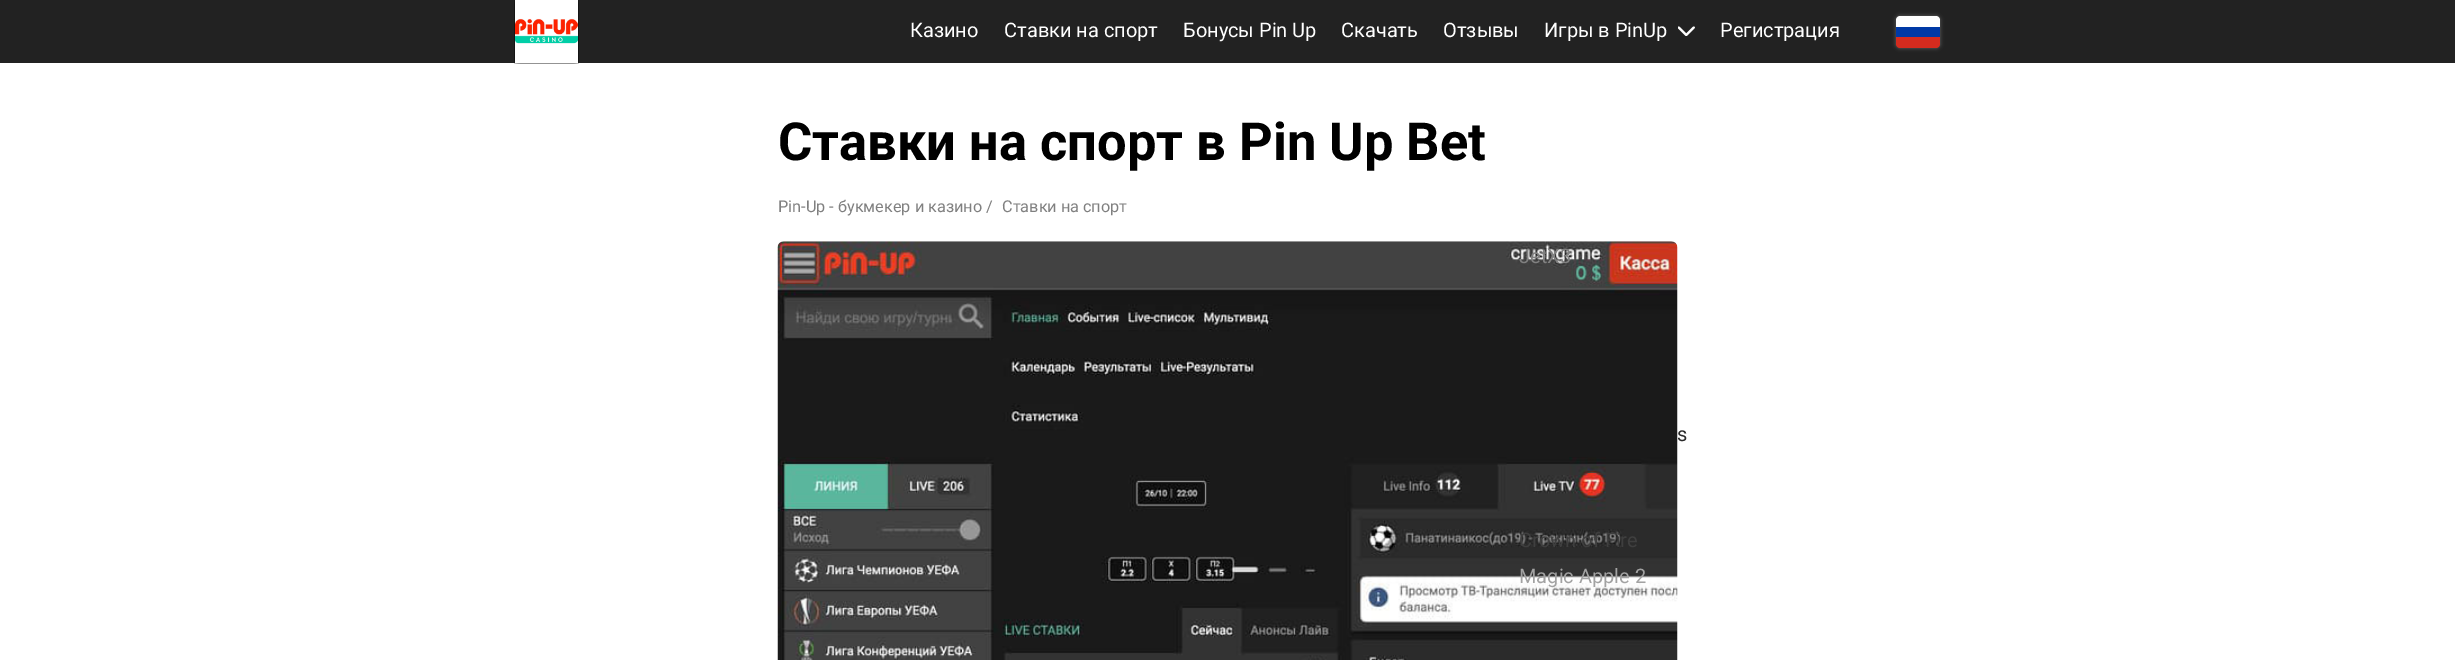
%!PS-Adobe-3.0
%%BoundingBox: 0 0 2455 660
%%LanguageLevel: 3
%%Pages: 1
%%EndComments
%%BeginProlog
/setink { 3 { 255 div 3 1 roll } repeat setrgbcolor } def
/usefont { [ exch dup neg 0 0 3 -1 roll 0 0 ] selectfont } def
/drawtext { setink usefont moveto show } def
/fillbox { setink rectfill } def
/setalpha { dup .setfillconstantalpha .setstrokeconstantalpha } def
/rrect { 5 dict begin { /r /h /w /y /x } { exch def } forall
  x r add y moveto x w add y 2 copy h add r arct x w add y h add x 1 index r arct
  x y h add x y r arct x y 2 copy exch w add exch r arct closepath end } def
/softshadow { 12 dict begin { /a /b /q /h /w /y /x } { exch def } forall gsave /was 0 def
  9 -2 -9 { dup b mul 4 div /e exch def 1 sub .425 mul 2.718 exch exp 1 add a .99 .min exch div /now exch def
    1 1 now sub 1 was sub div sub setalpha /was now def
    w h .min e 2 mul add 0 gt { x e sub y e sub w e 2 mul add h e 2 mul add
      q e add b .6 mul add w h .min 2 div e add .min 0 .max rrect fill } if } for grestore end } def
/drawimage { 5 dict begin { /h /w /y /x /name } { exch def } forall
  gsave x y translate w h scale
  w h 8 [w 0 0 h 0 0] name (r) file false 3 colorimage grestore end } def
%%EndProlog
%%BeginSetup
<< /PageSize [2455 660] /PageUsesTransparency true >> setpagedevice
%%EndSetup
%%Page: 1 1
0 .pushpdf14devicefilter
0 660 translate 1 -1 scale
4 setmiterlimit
0 0 2455 660 255 255 255 fillbox
0 0 2455 63 34 34 34 fillbox
(assets/img1.rgb) 514 0 65 64 drawimage
(Казино) 910 37 /Roboto-Regular 20 255 255 255 drawtext
(Ставки на спорт) 1004 37 /Roboto-Regular 20 255 255 255 drawtext
(Бонусы Pin Up) 1183 37 /Roboto-Regular 20 255 255 255 drawtext
(Скачать) 1341 37 /Roboto-Regular 20 255 255 255 drawtext
(Отзывы) 1443 37 /Roboto-Regular 20 255 255 255 drawtext
(Игры в PinUp) 1544 37 /Roboto-Regular 20 255 255 255 drawtext
(assets/img2.rgb) 1678 26 17 10 drawimage
(assets/img3.rgb) 777 241 901 419 drawimage
(JetX3) 1519 263 /Roboto-Regular 20 128 128 128 drawtext
(s) 1677 441 /Roboto-Regular 20 41 41 41 drawtext
(Crown of Fire) 1519 547 /Roboto-Regular 20 63 63 63 drawtext
(Magic Apple 2) 1519 583 /Roboto-Regular 20 162 162 162 drawtext
(Регистрация) 1720 37 /Roboto-Regular 20 255 255 255 drawtext
102 102 102 setink
1896 16 44 32 4 2 1 softshadow
255 255 255 setink
1900 16 moveto 1936 16 lineto 1938 16 1940 18 1940 20 curveto 1940 32 lineto 1896 32 lineto 1896 20 lineto 1896 18 1898 16 1900 16 curveto closepath fill
213 43 30 setink
1896 32 moveto 1940 32 lineto 1940 44 lineto 1940 46 1938 48 1936 48 curveto 1900 48 lineto 1898 48 1896 46 1896 44 curveto closepath fill
1896 27 44 10 0 57 166 fillbox
(Ставки на спорт в Pin Up Bet) 778 160 /Roboto-Bold 52.5 0 0 0 drawtext
(Pin-Up - букмекер и казино) 778 212 /Roboto-Regular 16.25 128 128 128 drawtext
(/) 986 212 /Roboto-Regular 16.25 128 128 128 drawtext
(Ставки на спорт) 1002 212 /Roboto-Regular 16.25 128 128 128 drawtext
.poppdf14devicefilter showpage
%%EOF
